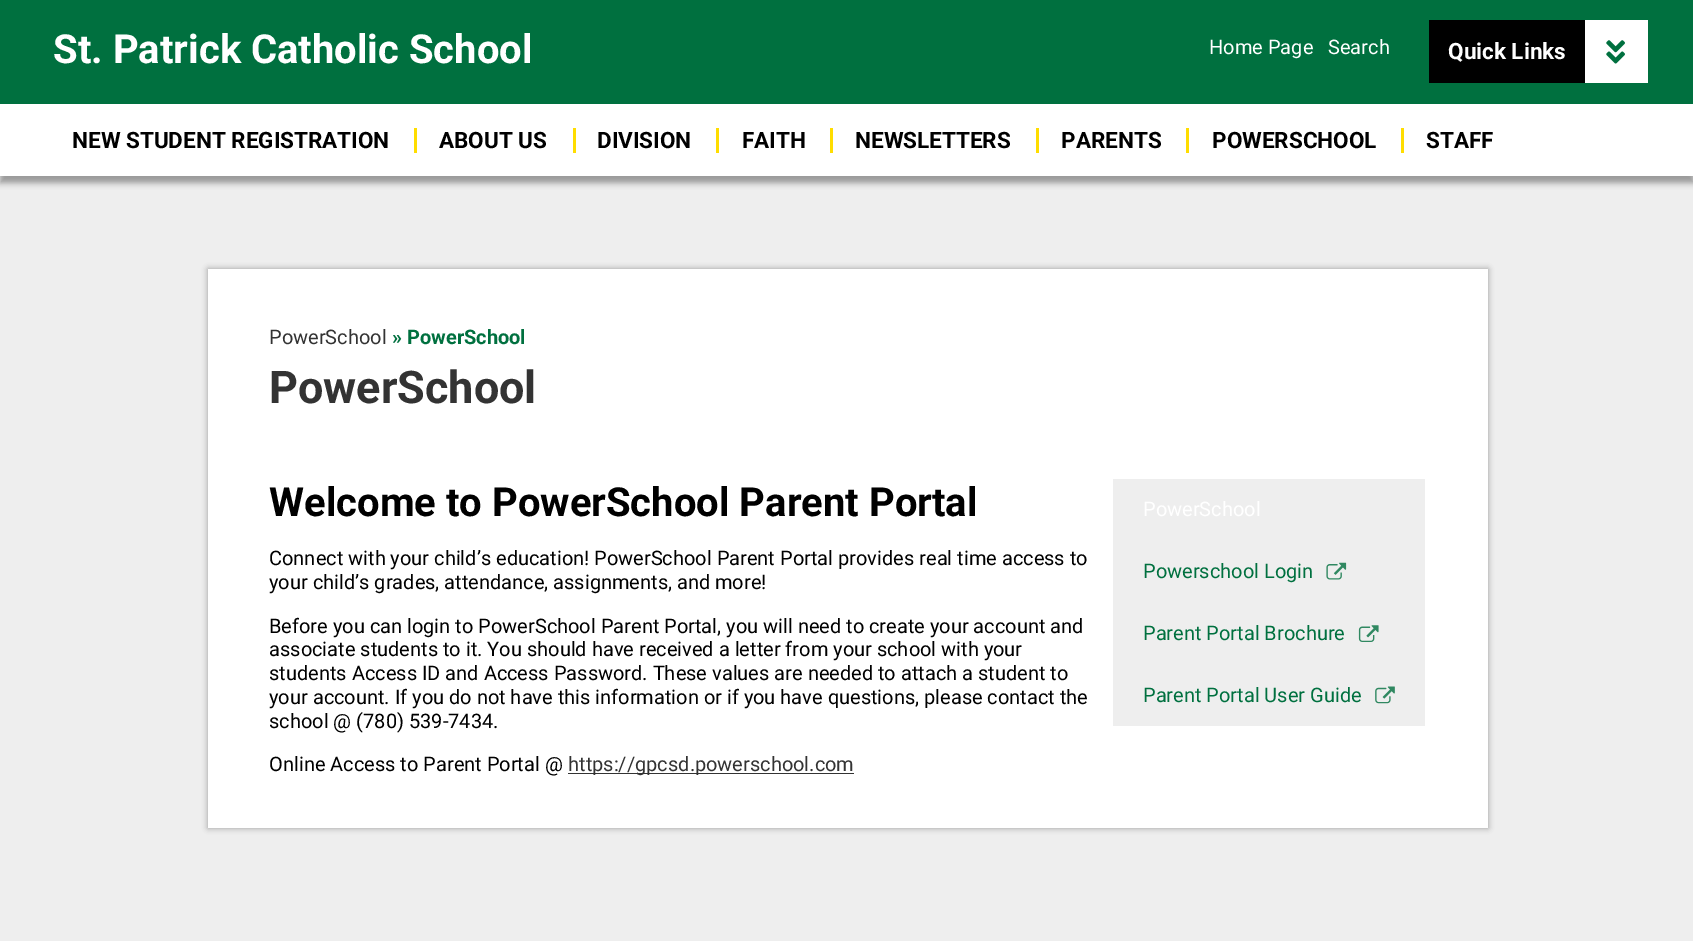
%!PS-Adobe-3.0
%%BoundingBox: 0 0 1693 941
%%LanguageLevel: 3
%%Pages: 1
%%EndComments
%%BeginProlog
/setink { 3 { 255 div 3 1 roll } repeat setrgbcolor } def
/usefont { [ exch dup neg 0 0 3 -1 roll 0 0 ] selectfont } def
/drawtext { setink usefont moveto show } def
/fillbox { setink rectfill } def
/setalpha { dup .setfillconstantalpha .setstrokeconstantalpha } def
/rrect { 5 dict begin { /r /h /w /y /x } { exch def } forall
  x r add y moveto x w add y 2 copy h add r arct x w add y h add x 1 index r arct
  x y h add x y r arct x y 2 copy exch w add exch r arct closepath end } def
/softshadow { 12 dict begin { /a /b /q /h /w /y /x } { exch def } forall gsave /was 0 def
  9 -2 -9 { dup b mul 4 div /e exch def 1 sub .425 mul 2.718 exch exp 1 add a .99 .min exch div /now exch def
    1 1 now sub 1 was sub div sub setalpha /was now def
    w h .min e 2 mul add 0 gt { x e sub y e sub w e 2 mul add h e 2 mul add
      q e add b .6 mul add w h .min 2 div e add .min 0 .max rrect fill } if } for grestore end } def
/drawimage { 5 dict begin { /h /w /y /x /name } { exch def } forall
  gsave x y translate w h scale
  w h 8 [w 0 0 h 0 0] name (r) file false 3 colorimage grestore end } def
%%EndProlog
%%BeginSetup
<< /PageSize [1693 941] /PageUsesTransparency true >> setpagedevice
%%EndSetup
%%Page: 1 1
0 .pushpdf14devicefilter
0 941 translate 1 -1 scale
4 setmiterlimit
0 0 1693 941 238 238 238 fillbox
0 0 0 setink
0 6 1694 177 0 3 0.35 softshadow
0 0 1693 104 0 112 63 fillbox
(St. Patrick Catholic School) 53 63 /Roboto-Bold 40 255 255 255 drawtext
(Home Page) 1209 54 /Roboto-Regular 20 255 255 255 drawtext
(Search) 1328 54 /Roboto-Regular 20 255 255 255 drawtext
0 104 1693 72 255 255 255 fillbox
1429 20 156 63 0 0 0 fillbox
(Quick Links) 1448 59 /Roboto-Bold 22.5 255 255 255 drawtext
1585 20 63 63 255 255 255 fillbox
(assets/img1.rgb) 1606 40 19 24 drawimage
(NEW STUDENT REGISTRATION) 72 148 /Roboto-Bold 22.5 0 0 0 drawtext
414 128 3 25 255 221 0 fillbox
(ABOUT US) 439 148 /Roboto-Bold 22.5 0 0 0 drawtext
573 128 3 25 255 221 0 fillbox
(DIVISION) 597 148 /Roboto-Bold 22.5 0 0 0 drawtext
716 128 3 25 255 221 0 fillbox
(FAITH) 742 148 /Roboto-Bold 22.5 0 0 0 drawtext
830 128 3 25 255 221 0 fillbox
(NEWSLETTERS) 855 148 /Roboto-Bold 22.5 0 0 0 drawtext
1036 128 3 25 255 221 0 fillbox
(PARENTS) 1061 148 /Roboto-Bold 22.5 0 0 0 drawtext
1186 128 3 25 255 221 0 fillbox
(POWERSCHOOL) 1212 148 /Roboto-Bold 22.5 0 0 0 drawtext
1401 128 3 25 255 221 0 fillbox
(STAFF) 1426 148 /Roboto-Bold 22.5 0 0 0 drawtext
208 269 1280 559 0 3 0.35 softshadow
208 269 1280 559 255 255 255 fillbox
(PowerSchool) 269 344 /Roboto-Regular 20 51 51 51 drawtext
(» PowerSchool) 392 344 /Roboto-Bold 20 0 112 63 drawtext
(PowerSchool) 269 403 /Roboto-Bold 45 51 51 51 drawtext
(Welcome to PowerSchool Parent Portal) 269 516 /Roboto-Bold 40 0 0 0 drawtext
(Connect with your child’s education! PowerSchool Parent Portal provides real time access to) 269 565 /Roboto-Regular 20 0 0 0 drawtext
(your child’s grades, attendance, assignments, and more!) 269 589 /Roboto-Regular 20 0 0 0 drawtext
(Before you can login to PowerSchool Parent Portal, you will need to create your account and) 269 633 /Roboto-Regular 20 0 0 0 drawtext
(associate students to it. You should have received a letter from your school with your) 269 656 /Roboto-Regular 20 0 0 0 drawtext
(students Access ID and Access Password. These values are needed to attach a student to) 269 680 /Roboto-Regular 20 0 0 0 drawtext
(your account. If you do not have this information or if you have questions, please contact the) 269 704 /Roboto-Regular 20 0 0 0 drawtext
(school @ \(780\) 539-7434.) 269 728 /Roboto-Regular 20 0 0 0 drawtext
(Online Access to Parent Portal @) 269 771 /Roboto-Regular 20 0 0 0 drawtext
568 773 286 1 51 51 51 fillbox
(https://gpcsd.powerschool.com) 568 771 /Roboto-Regular 20 51 51 51 drawtext
1113 479 312 247 238 238 238 fillbox
(PowerSchool) 1143 516 /Roboto-Regular 20 255 255 255 drawtext
(Powerschool Login) 1143 578 /Roboto-Regular 20 0 112 63 drawtext
(assets/img2.rgb) 1326 562 21 18 drawimage
(Parent Portal Brochure) 1143 640 /Roboto-Regular 20 0 112 63 drawtext
(assets/img3.rgb) 1358 625 21 17 drawimage
(Parent Portal User Guide) 1143 702 /Roboto-Regular 20 0 112 63 drawtext
(assets/img4.rgb) 1375 686 20 18 drawimage
.poppdf14devicefilter showpage
%%EOF
